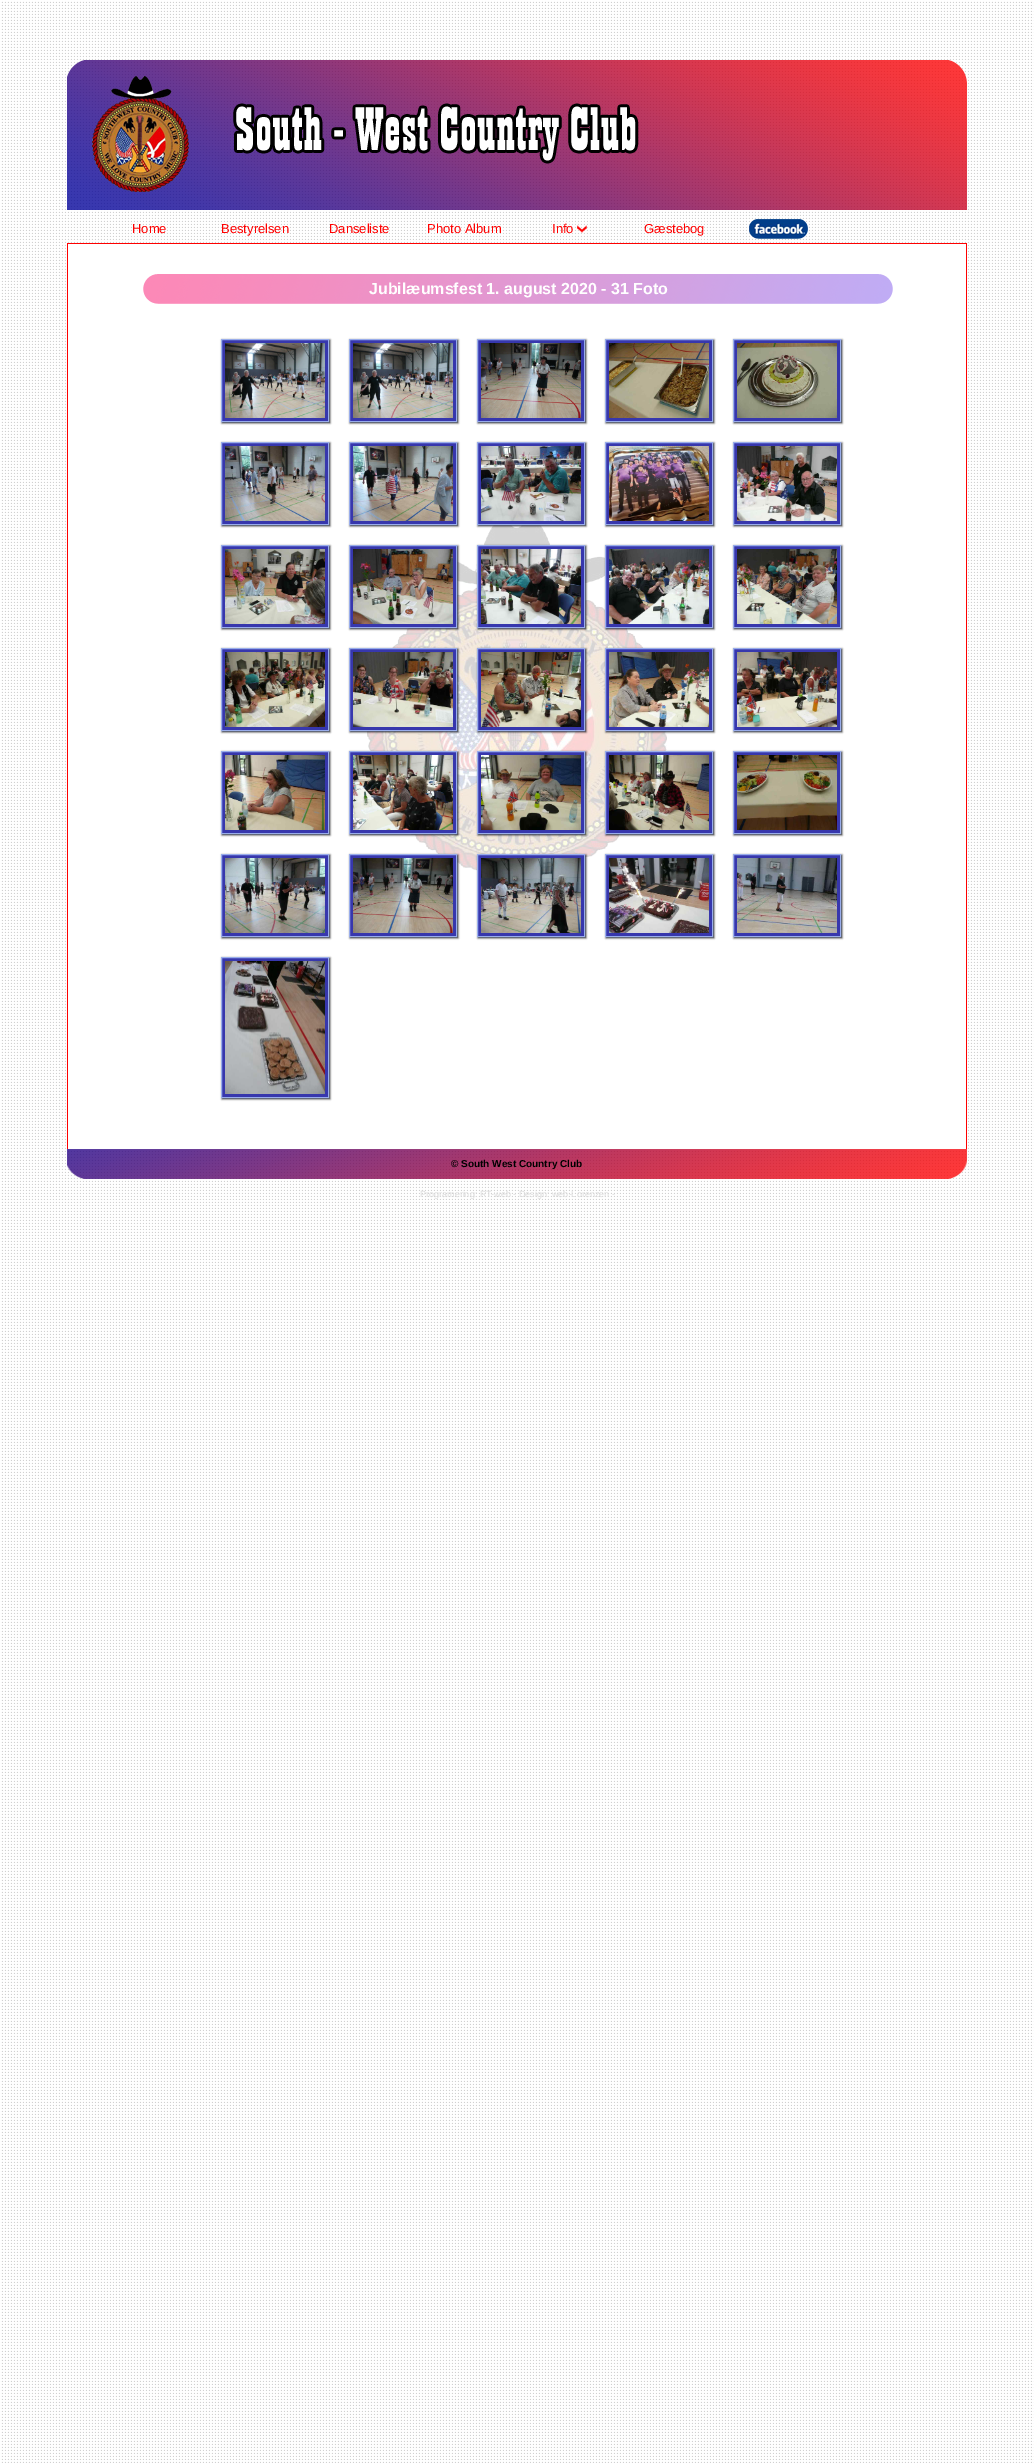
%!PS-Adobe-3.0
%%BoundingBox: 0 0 1034 2463
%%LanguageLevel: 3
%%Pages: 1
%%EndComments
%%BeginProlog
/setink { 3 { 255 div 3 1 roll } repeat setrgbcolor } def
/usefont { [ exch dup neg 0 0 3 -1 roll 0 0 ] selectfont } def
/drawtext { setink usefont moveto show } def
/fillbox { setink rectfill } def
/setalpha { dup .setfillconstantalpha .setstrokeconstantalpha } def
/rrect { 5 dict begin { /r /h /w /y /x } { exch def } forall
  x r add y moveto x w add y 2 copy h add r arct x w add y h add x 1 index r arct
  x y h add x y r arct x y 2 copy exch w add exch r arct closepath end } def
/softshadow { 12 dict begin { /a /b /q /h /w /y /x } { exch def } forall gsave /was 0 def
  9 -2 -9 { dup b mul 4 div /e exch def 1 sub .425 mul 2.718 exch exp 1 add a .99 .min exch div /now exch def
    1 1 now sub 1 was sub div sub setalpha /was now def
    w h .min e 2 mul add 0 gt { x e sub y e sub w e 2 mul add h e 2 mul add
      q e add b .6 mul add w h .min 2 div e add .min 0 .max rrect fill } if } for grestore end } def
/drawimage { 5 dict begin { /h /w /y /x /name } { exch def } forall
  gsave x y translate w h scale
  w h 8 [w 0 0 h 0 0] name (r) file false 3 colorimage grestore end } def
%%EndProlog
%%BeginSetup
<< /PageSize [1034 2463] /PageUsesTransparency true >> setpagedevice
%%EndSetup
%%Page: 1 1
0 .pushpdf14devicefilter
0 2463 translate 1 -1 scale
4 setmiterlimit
0 0 1034 2463 255 255 255 fillbox
(assets/img1.rgb) 1 1 1033 2462 drawimage
(assets/img2.rgb) 67 60 900 150 drawimage
(Home) 132 233 /LiberationSans-Regular 13 255 0 0 drawtext
(Bestyrelsen) 221 233 /LiberationSans-Regular 13 255 0 0 drawtext
(Danseliste) 329 233 /LiberationSans-Regular 13 255 0 0 drawtext
(Photo Album) 427 233 /LiberationSans-Regular 13 255 0 0 drawtext
(Info) 552 233 /LiberationSans-Regular 13 255 0 0 drawtext
(assets/img3.rgb) 577 225 10 8 drawimage
(Gæstebog) 644 233 /LiberationSans-Regular 13 255 0 0 drawtext
(assets/img4.rgb) 749 219 59 20 drawimage
68 244 898 905 255 255 255 fillbox
(assets/img5.rgb) 367 525 300 346 drawimage
67 243 900 1 255 0 0 fillbox
966 243 1 906 255 0 0 fillbox
67 243 1 906 255 0 0 fillbox
(assets/img6.rgb) 143 274 750 30 drawimage
(Jubilæumsfest 1. august 2020 - 31 Foto) 369 294 /LiberationSans-Bold 16 255 255 255 drawtext
0 0 0 setink
222 340 108 83 0 1 1 softshadow
55 55 173 setink
221.5 339.5 moveto 328.5 339.5 lineto 328.5 421.5 lineto 221.5 421.5 lineto closepath gsave fill grestore
153 173 235 setink
stroke
(assets/img7.rgb) 225 343 100 75 drawimage
0 0 0 setink
350 340 108 83 0 1 1 softshadow
55 55 173 setink
349.5 339.5 moveto 456.5 339.5 lineto 456.5 421.5 lineto 349.5 421.5 lineto closepath gsave fill grestore
153 173 235 setink
stroke
(assets/img8.rgb) 353 343 100 75 drawimage
0 0 0 setink
478 340 108 83 0 1 1 softshadow
55 55 173 setink
477.5 339.5 moveto 584.5 339.5 lineto 584.5 421.5 lineto 477.5 421.5 lineto closepath gsave fill grestore
153 173 235 setink
stroke
(assets/img9.rgb) 481 343 100 75 drawimage
0 0 0 setink
606 340 108 83 0 1 1 softshadow
55 55 173 setink
605.5 339.5 moveto 712.5 339.5 lineto 712.5 421.5 lineto 605.5 421.5 lineto closepath gsave fill grestore
153 173 235 setink
stroke
(assets/img10.rgb) 609 343 100 75 drawimage
0 0 0 setink
734 340 108 83 0 1 1 softshadow
55 55 173 setink
733.5 339.5 moveto 840.5 339.5 lineto 840.5 421.5 lineto 733.5 421.5 lineto closepath gsave fill grestore
153 173 235 setink
stroke
(assets/img11.rgb) 737 343 100 75 drawimage
0 0 0 setink
222 443 108 83 0 1 1 softshadow
55 55 173 setink
221.5 442.5 moveto 328.5 442.5 lineto 328.5 524.5 lineto 221.5 524.5 lineto closepath gsave fill grestore
153 173 235 setink
stroke
(assets/img12.rgb) 225 446 100 75 drawimage
0 0 0 setink
350 443 108 83 0 1 1 softshadow
55 55 173 setink
349.5 442.5 moveto 456.5 442.5 lineto 456.5 524.5 lineto 349.5 524.5 lineto closepath gsave fill grestore
153 173 235 setink
stroke
(assets/img13.rgb) 353 446 100 75 drawimage
0 0 0 setink
478 443 108 83 0 1 1 softshadow
55 55 173 setink
477.5 442.5 moveto 584.5 442.5 lineto 584.5 524.5 lineto 477.5 524.5 lineto closepath gsave fill grestore
153 173 235 setink
stroke
(assets/img14.rgb) 481 446 100 75 drawimage
0 0 0 setink
606 443 108 83 0 1 1 softshadow
55 55 173 setink
605.5 442.5 moveto 712.5 442.5 lineto 712.5 524.5 lineto 605.5 524.5 lineto closepath gsave fill grestore
153 173 235 setink
stroke
(assets/img15.rgb) 609 446 100 75 drawimage
0 0 0 setink
734 443 108 83 0 1 1 softshadow
55 55 173 setink
733.5 442.5 moveto 840.5 442.5 lineto 840.5 524.5 lineto 733.5 524.5 lineto closepath gsave fill grestore
153 173 235 setink
stroke
(assets/img16.rgb) 737 446 100 75 drawimage
0 0 0 setink
222 546 108 83 0 1 1 softshadow
55 55 173 setink
221.5 545.5 moveto 328.5 545.5 lineto 328.5 627.5 lineto 221.5 627.5 lineto closepath gsave fill grestore
153 173 235 setink
stroke
(assets/img17.rgb) 225 549 100 75 drawimage
0 0 0 setink
350 546 108 83 0 1 1 softshadow
55 55 173 setink
349.5 545.5 moveto 456.5 545.5 lineto 456.5 627.5 lineto 349.5 627.5 lineto closepath gsave fill grestore
153 173 235 setink
stroke
(assets/img18.rgb) 353 549 100 75 drawimage
0 0 0 setink
478 546 108 83 0 1 1 softshadow
55 55 173 setink
477.5 545.5 moveto 584.5 545.5 lineto 584.5 627.5 lineto 477.5 627.5 lineto closepath gsave fill grestore
153 173 235 setink
stroke
(assets/img19.rgb) 481 549 100 75 drawimage
0 0 0 setink
606 546 108 83 0 1 1 softshadow
55 55 173 setink
605.5 545.5 moveto 712.5 545.5 lineto 712.5 627.5 lineto 605.5 627.5 lineto closepath gsave fill grestore
153 173 235 setink
stroke
(assets/img20.rgb) 609 549 100 75 drawimage
0 0 0 setink
734 546 108 83 0 1 1 softshadow
55 55 173 setink
733.5 545.5 moveto 840.5 545.5 lineto 840.5 627.5 lineto 733.5 627.5 lineto closepath gsave fill grestore
153 173 235 setink
stroke
(assets/img21.rgb) 737 549 100 75 drawimage
0 0 0 setink
222 649 108 83 0 1 1 softshadow
55 55 173 setink
221.5 648.5 moveto 328.5 648.5 lineto 328.5 730.5 lineto 221.5 730.5 lineto closepath gsave fill grestore
153 173 235 setink
stroke
(assets/img22.rgb) 225 652 100 75 drawimage
0 0 0 setink
350 649 108 83 0 1 1 softshadow
55 55 173 setink
349.5 648.5 moveto 456.5 648.5 lineto 456.5 730.5 lineto 349.5 730.5 lineto closepath gsave fill grestore
153 173 235 setink
stroke
(assets/img23.rgb) 353 652 100 75 drawimage
0 0 0 setink
478 649 108 83 0 1 1 softshadow
55 55 173 setink
477.5 648.5 moveto 584.5 648.5 lineto 584.5 730.5 lineto 477.5 730.5 lineto closepath gsave fill grestore
153 173 235 setink
stroke
(assets/img24.rgb) 481 652 100 75 drawimage
0 0 0 setink
606 649 108 83 0 1 1 softshadow
55 55 173 setink
605.5 648.5 moveto 712.5 648.5 lineto 712.5 730.5 lineto 605.5 730.5 lineto closepath gsave fill grestore
153 173 235 setink
stroke
(assets/img25.rgb) 609 652 100 75 drawimage
0 0 0 setink
734 649 108 83 0 1 1 softshadow
55 55 173 setink
733.5 648.5 moveto 840.5 648.5 lineto 840.5 730.5 lineto 733.5 730.5 lineto closepath gsave fill grestore
153 173 235 setink
stroke
(assets/img26.rgb) 737 652 100 75 drawimage
0 0 0 setink
222 752 108 83 0 1 1 softshadow
55 55 173 setink
221.5 751.5 moveto 328.5 751.5 lineto 328.5 833.5 lineto 221.5 833.5 lineto closepath gsave fill grestore
153 173 235 setink
stroke
(assets/img27.rgb) 225 755 100 75 drawimage
0 0 0 setink
350 752 108 83 0 1 1 softshadow
55 55 173 setink
349.5 751.5 moveto 456.5 751.5 lineto 456.5 833.5 lineto 349.5 833.5 lineto closepath gsave fill grestore
153 173 235 setink
stroke
(assets/img28.rgb) 353 755 100 75 drawimage
0 0 0 setink
478 752 108 83 0 1 1 softshadow
55 55 173 setink
477.5 751.5 moveto 584.5 751.5 lineto 584.5 833.5 lineto 477.5 833.5 lineto closepath gsave fill grestore
153 173 235 setink
stroke
(assets/img29.rgb) 481 755 100 75 drawimage
0 0 0 setink
606 752 108 83 0 1 1 softshadow
55 55 173 setink
605.5 751.5 moveto 712.5 751.5 lineto 712.5 833.5 lineto 605.5 833.5 lineto closepath gsave fill grestore
153 173 235 setink
stroke
(assets/img30.rgb) 609 755 100 75 drawimage
0 0 0 setink
734 752 108 83 0 1 1 softshadow
55 55 173 setink
733.5 751.5 moveto 840.5 751.5 lineto 840.5 833.5 lineto 733.5 833.5 lineto closepath gsave fill grestore
153 173 235 setink
stroke
(assets/img31.rgb) 737 755 100 75 drawimage
0 0 0 setink
222 855 108 83 0 1 1 softshadow
55 55 173 setink
221.5 854.5 moveto 328.5 854.5 lineto 328.5 936.5 lineto 221.5 936.5 lineto closepath gsave fill grestore
153 173 235 setink
stroke
(assets/img32.rgb) 225 858 100 75 drawimage
0 0 0 setink
350 855 108 83 0 1 1 softshadow
55 55 173 setink
349.5 854.5 moveto 456.5 854.5 lineto 456.5 936.5 lineto 349.5 936.5 lineto closepath gsave fill grestore
153 173 235 setink
stroke
(assets/img33.rgb) 353 858 100 75 drawimage
0 0 0 setink
478 855 108 83 0 1 1 softshadow
55 55 173 setink
477.5 854.5 moveto 584.5 854.5 lineto 584.5 936.5 lineto 477.5 936.5 lineto closepath gsave fill grestore
153 173 235 setink
stroke
(assets/img34.rgb) 481 858 100 75 drawimage
0 0 0 setink
606 855 108 83 0 1 1 softshadow
55 55 173 setink
605.5 854.5 moveto 712.5 854.5 lineto 712.5 936.5 lineto 605.5 936.5 lineto closepath gsave fill grestore
153 173 235 setink
stroke
(assets/img35.rgb) 609 858 100 75 drawimage
0 0 0 setink
734 855 108 83 0 1 1 softshadow
55 55 173 setink
733.5 854.5 moveto 840.5 854.5 lineto 840.5 936.5 lineto 733.5 936.5 lineto closepath gsave fill grestore
153 173 235 setink
stroke
(assets/img36.rgb) 737 858 100 75 drawimage
0 0 0 setink
222 958 108 141 0 1 1 softshadow
55 55 173 setink
221.5 957.5 moveto 328.5 957.5 lineto 328.5 1097.5 lineto 221.5 1097.5 lineto closepath gsave fill grestore
153 173 235 setink
stroke
(assets/img37.rgb) 225 961 100 133 drawimage
(assets/img38.rgb) 67 1149 900 30 drawimage
(© South West Country Club) 451 1167 /LiberationSans-Bold 10 0 0 0 drawtext
(Programering: RT-web - Design: web-Lorenzen -) 420 1197 /LiberationSans-Regular 9 219 219 219 drawtext
.poppdf14devicefilter showpage
%%EOF
